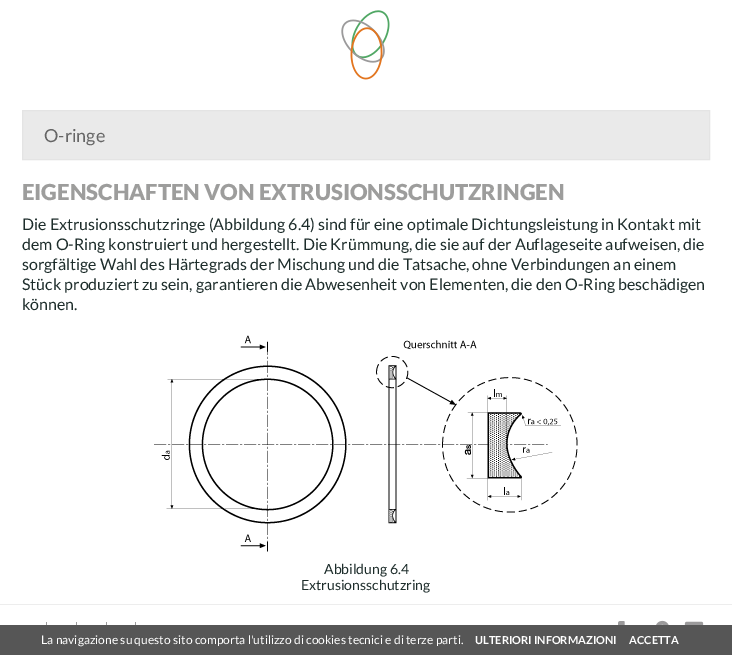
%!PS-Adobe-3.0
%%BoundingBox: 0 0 732 655
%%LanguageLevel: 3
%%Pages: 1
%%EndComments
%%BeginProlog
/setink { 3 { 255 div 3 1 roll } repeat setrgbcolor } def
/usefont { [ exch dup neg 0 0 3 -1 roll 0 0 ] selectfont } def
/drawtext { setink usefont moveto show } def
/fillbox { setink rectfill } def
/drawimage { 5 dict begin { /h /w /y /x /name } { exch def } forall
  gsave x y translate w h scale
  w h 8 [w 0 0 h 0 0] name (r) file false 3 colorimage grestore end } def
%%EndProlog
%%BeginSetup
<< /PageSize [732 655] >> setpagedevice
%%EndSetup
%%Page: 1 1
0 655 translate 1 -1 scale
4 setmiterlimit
0 0 732 655 255 255 255 fillbox
(assets/img1.rgb) 341 10 49 70 drawimage
234 234 234 setink
22.5 110.5 moveto 709.5 110.5 lineto 709.5 159.5 lineto 22.5 159.5 lineto closepath gsave fill grestore
228 228 228 setink
stroke
(O-ringe) 44 142 /Lato-Regular 18 102 102 102 drawtext
(EIGENSCHAFTEN VON EXTRUSIONSSCHUTZRINGEN) 22 200 /Lato-Black 22 157 157 156 drawtext
(Die Extrusionsschutzringe \(Abbildung 6.4\) sind für eine optimale Dichtungsleistung in Kontakt mit) 22 230 /Lato-Regular 16 29 45 43 drawtext
(dem O-Ring konstruiert und hergestellt. Die Krümmung, die sie auf der Auflageseite aufweisen, die) 22 250 /Lato-Regular 16 29 45 43 drawtext
(sorgfältige Wahl des Härtegrads der Mischung und die Tatsache, ohne Verbindungen an einem) 22 270 /Lato-Regular 16 29 45 43 drawtext
(Stück produziert zu sein, garantieren die Abwesenheit von Elementen, die den O-Ring beschädigen) 22 290 /Lato-Regular 16 29 45 43 drawtext
(können.) 22 310 /Lato-Regular 16 29 45 43 drawtext
(assets/img2.rgb) 154 335 424 217 drawimage
(Abbildung 6.4) 324 574 /Lato-Regular 14 29 45 43 drawtext
(Extrusionsschutzring) 301 590 /Lato-Regular 14 29 45 43 drawtext
0 604 732 1 237 237 237 fillbox
46 622 1 3 155 154 155 fillbox
76 622 1 3 155 154 155 fillbox
106 622 1 3 155 154 155 fillbox
135 622 1 3 155 154 155 fillbox
(assets/img3.rgb) 618 621 7 4 drawimage
(assets/img4.rgb) 656 620 13 5 drawimage
(assets/img5.rgb) 684 621 20 4 drawimage
0 625 732 30 86 86 86 fillbox
(La navigazione su questo sito comporta l'utilizzo di cookies tecnici e di terze parti.) 41 644 /Lato-Regular 12 255 255 255 drawtext
(ULTERIORI INFORMAZIONI) 475 644 /Lato-Bold 11 255 255 255 drawtext
(ACCETTA) 629 644 /Lato-Bold 11 255 255 255 drawtext
showpage
%%EOF
